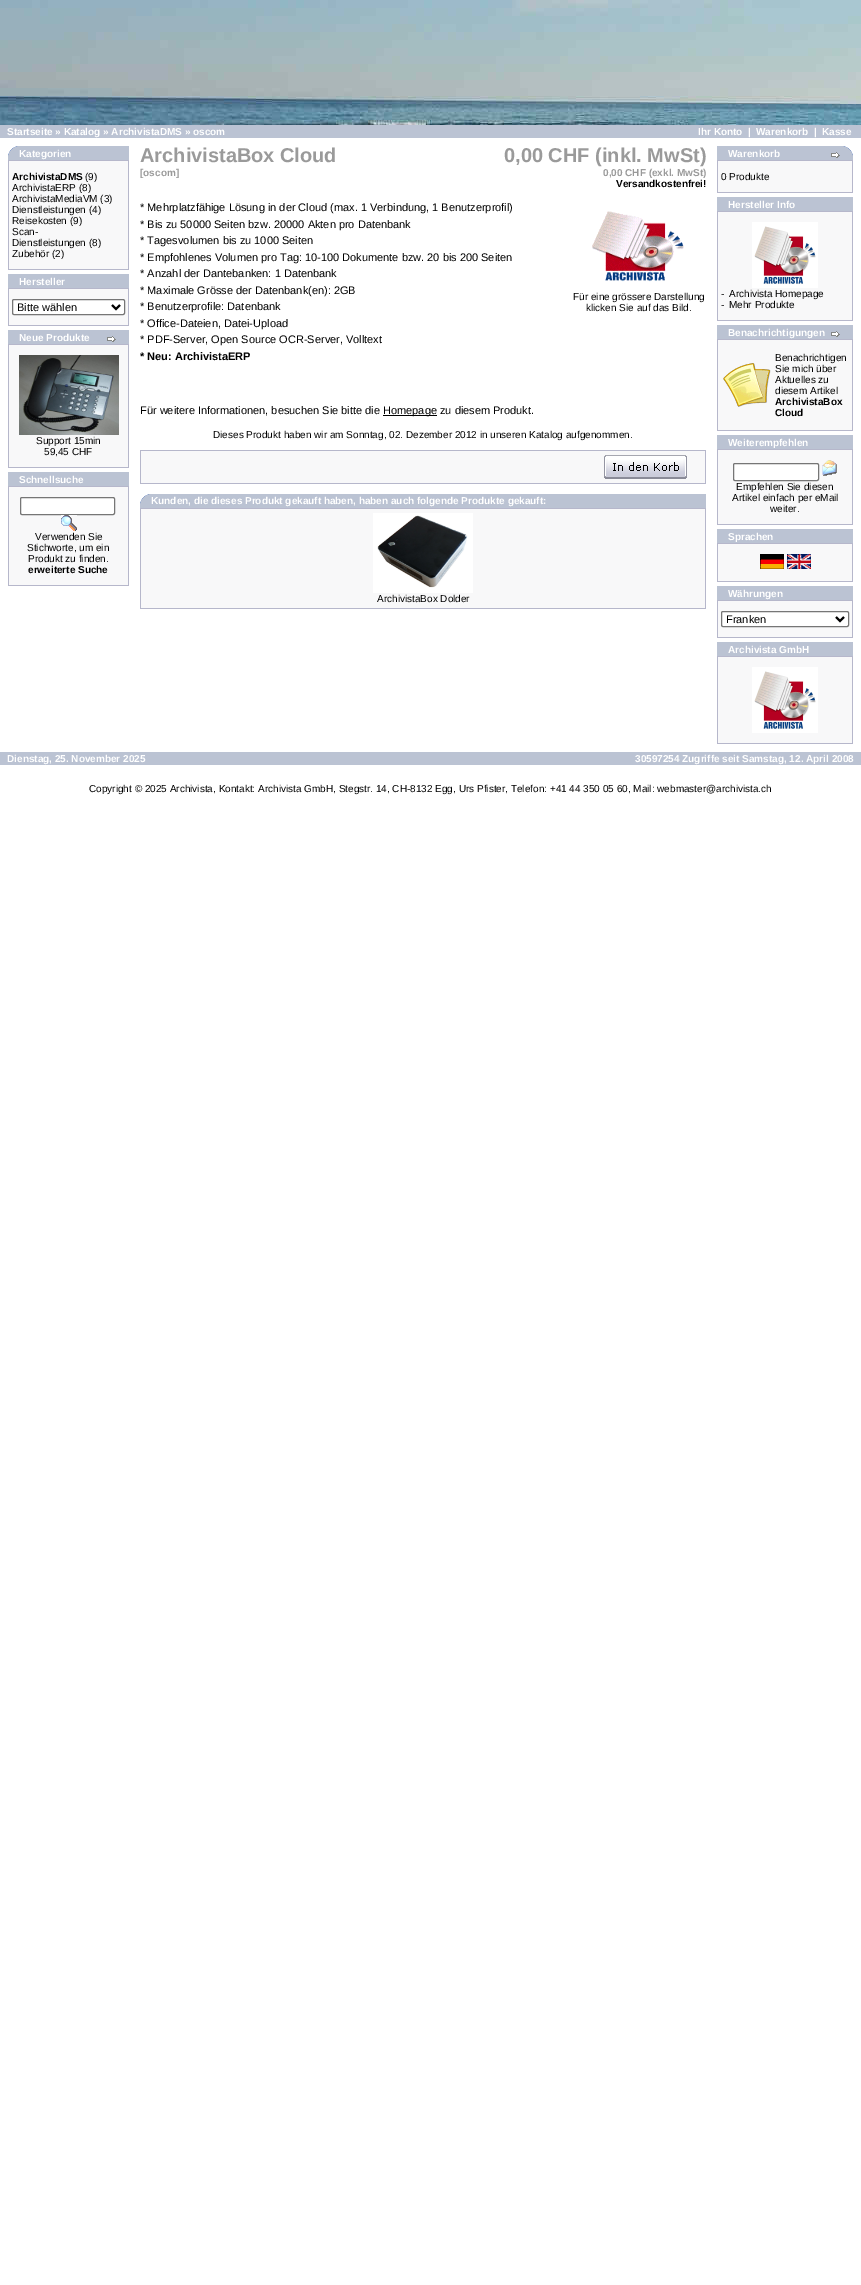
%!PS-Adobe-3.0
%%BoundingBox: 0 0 861 2285
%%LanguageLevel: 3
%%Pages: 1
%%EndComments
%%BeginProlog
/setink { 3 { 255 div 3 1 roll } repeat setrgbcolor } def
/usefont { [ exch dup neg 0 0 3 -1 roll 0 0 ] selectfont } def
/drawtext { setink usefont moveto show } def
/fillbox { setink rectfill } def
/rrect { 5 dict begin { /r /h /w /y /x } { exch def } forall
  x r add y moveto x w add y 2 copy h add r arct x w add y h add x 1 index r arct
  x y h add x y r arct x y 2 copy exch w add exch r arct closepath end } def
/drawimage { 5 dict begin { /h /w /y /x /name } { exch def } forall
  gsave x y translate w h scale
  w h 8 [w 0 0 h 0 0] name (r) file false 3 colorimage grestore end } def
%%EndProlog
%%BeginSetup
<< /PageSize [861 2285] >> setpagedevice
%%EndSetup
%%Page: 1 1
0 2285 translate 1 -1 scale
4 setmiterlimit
0 0 861 2285 255 255 255 fillbox
(assets/img1.rgb) 0 0 861 125 drawimage
0 125 861 13 187 195 211 fillbox
(Startseite » Katalog » ArchivistaDMS » oscom) 7 135 /LiberationSans-Bold 10 255 255 255 drawtext
(Ihr Konto) 698 135 /LiberationSans-Bold 10 255 255 255 drawtext
(|) 748 135 /LiberationSans-Bold 10 255 255 255 drawtext
(Warenkorb) 756 135 /LiberationSans-Bold 10 255 255 255 drawtext
(|) 814 135 /LiberationSans-Bold 10 255 255 255 drawtext
(Kasse) 822 135 /LiberationSans-Bold 10 255 255 255 drawtext
8 146 121 14 187 195 211 fillbox
(assets/img2.rgb) 8 146 10 10 drawimage
(Kategorien) 19 157 /LiberationSans-Bold 10 255 255 255 drawtext
8 160 121 110 182 183 203 fillbox
9 161 119 108 248 248 249 fillbox
(ArchivistaDMS) 12 180 /LiberationSans-Bold 10 0 0 0 drawtext
(\(9\)) 85 180 /LiberationSans-Regular 10 0 0 0 drawtext
(ArchivistaERP \(8\)) 12 191 /LiberationSans-Regular 10 0 0 0 drawtext
(ArchivistaMediaVM \(3\)) 12 202 /LiberationSans-Regular 10 0 0 0 drawtext
(Dienstleistungen \(4\)) 12 213 /LiberationSans-Regular 10 0 0 0 drawtext
(Reisekosten \(9\)) 12 224 /LiberationSans-Regular 10 0 0 0 drawtext
(Scan-) 12 235 /LiberationSans-Regular 10 0 0 0 drawtext
(Dienstleistungen \(8\)) 12 246 /LiberationSans-Regular 10 0 0 0 drawtext
(Zubehör \(2\)) 12 257 /LiberationSans-Regular 10 0 0 0 drawtext
8 274 121 14 187 195 211 fillbox
(Hersteller) 19 285 /LiberationSans-Bold 10 255 255 255 drawtext
8 288 121 38 182 183 203 fillbox
9 289 119 36 248 248 249 fillbox
255 255 255 setink
12.5 299.5 112 15 1.5 rrect gsave fill grestore
118 118 118 setink
stroke
0 0 0 setink
2 setlinewidth
112 305 moveto 116 309 lineto 120 305 lineto stroke
(Bitte wählen) 17 311 /LiberationSans-Regular 11 0 0 0 drawtext
8 330 121 14 187 195 211 fillbox
(Neue Produkte) 19 341 /LiberationSans-Bold 10 255 255 255 drawtext
(assets/img3.rgb) 107 336 9 6 drawimage
8 344 121 124 182 183 203 fillbox
9 345 119 122 248 248 249 fillbox
(assets/img4.rgb) 19 355 100 80 drawimage
(Support 15min) 36 444 /LiberationSans-Regular 10 0 0 0 drawtext
(59,45 CHF) 44 455 /LiberationSans-Regular 10 0 0 0 drawtext
8 472 121 14 187 195 211 fillbox
(Schnellsuche) 19 483 /LiberationSans-Bold 10 255 255 255 drawtext
8 486 121 100 182 183 203 fillbox
9 487 119 98 248 248 249 fillbox
255 255 255 setink
20.5 497.5 94 17 1.5 rrect gsave fill grestore
118 118 118 setink
1 setlinewidth
stroke
(assets/img5.rgb) 61 515 16 16 drawimage
(Verwenden Sie) 35 540 /LiberationSans-Regular 10 0 0 0 drawtext
(Stichworte, um ein) 27 551 /LiberationSans-Regular 10 0 0 0 drawtext
(Produkt zu finden.) 28 562 /LiberationSans-Regular 10 0 0 0 drawtext
(erweiterte Suche) 28 573 /LiberationSans-Bold 10 0 0 0 drawtext
(ArchivistaBox Cloud) 140 162 /LiberationSans-Bold 20 154 154 154 drawtext
([oscom]) 140 176 /LiberationSans-Bold 10 154 154 154 drawtext
(0,00 CHF \(inkl. MwSt\)) 504 162 /LiberationSans-Bold 20 154 154 154 drawtext
(0,00 CHF \(exkl. MwSt\)) 603 176 /LiberationSans-Bold 10 154 154 154 drawtext
(Versandkostenfrei!) 616 187 /LiberationSans-Bold 10 0 0 0 drawtext
(* Mehrplatzfähige Lösung in der Cloud \(max. 1 Verbindung, 1 Benutzerprofil\)) 140 211 /LiberationSans-Regular 11 0 0 0 drawtext
(* Bis zu 50000 Seiten bzw. 20000 Akten pro Datenbank) 140 228 /LiberationSans-Regular 11 0 0 0 drawtext
(* Tagesvolumen bis zu 1000 Seiten) 140 244 /LiberationSans-Regular 11 0 0 0 drawtext
(* Empfohlenes Volumen pro Tag: 10-100 Dokumente bzw. 20 bis 200 Seiten) 140 261 /LiberationSans-Regular 11 0 0 0 drawtext
(* Anzahl der Dantebanken: 1 Datenbank) 140 277 /LiberationSans-Regular 11 0 0 0 drawtext
(* Maximale Grösse der Datenbank\(en\): 2GB) 140 294 /LiberationSans-Regular 11 0 0 0 drawtext
(* Benutzerprofile: Datenbank) 140 310 /LiberationSans-Regular 11 0 0 0 drawtext
(* Office-Dateien, Datei-Upload) 140 327 /LiberationSans-Regular 11 0 0 0 drawtext
(* PDF-Server, Open Source OCR-Server, Volltext) 140 343 /LiberationSans-Regular 11 0 0 0 drawtext
(* Neu: ArchivistaERP) 140 360 /LiberationSans-Bold 11 0 0 0 drawtext
(assets/img6.rgb) 592 211 92 71 drawimage
(Für eine grössere Darstellung) 573 300 /LiberationSans-Regular 10 0 0 0 drawtext
(klicken Sie auf das Bild.) 586 311 /LiberationSans-Regular 10 0 0 0 drawtext
(Für weitere Informationen, besuchen Sie bitte die) 140 414 /LiberationSans-Regular 11 0 0 0 drawtext
383 415 54 1 0 0 0 fillbox
(Homepage zu diesem Produkt.) 383 414 /LiberationSans-Regular 11 0 0 0 drawtext
(Dieses Produkt haben wir am Sonntag, 02. Dezember 2012 in unseren Katalog aufgenommen.) 213 438 /LiberationSans-Regular 10 0 0 0 drawtext
140 450 566 34 182 183 203 fillbox
141 451 564 32 248 248 249 fillbox
(assets/img7.rgb) 604 455 83 24 drawimage
140 494 566 14 187 195 211 fillbox
(assets/img2.rgb) 140 494 10 10 drawimage
(Kunden, die dieses Produkt gekauft haben, haben auch folgende Produkte gekauft:) 151 504 /LiberationSans-Bold 10 255 255 255 drawtext
140 508 566 101 182 183 203 fillbox
141 509 564 99 248 248 249 fillbox
(assets/img8.rgb) 373 513 100 80 drawimage
(ArchivistaBox Dolder) 377 602 /LiberationSans-Regular 10 0 0 0 drawtext
717 146 136 14 187 195 211 fillbox
(Warenkorb) 728 157 /LiberationSans-Bold 10 255 255 255 drawtext
(assets/img3.rgb) 831 152 9 6 drawimage
(assets/img9.rgb) 843 146 10 10 drawimage
717 160 136 33 182 183 203 fillbox
718 161 134 31 248 248 249 fillbox
(0 Produkte) 721 180 /LiberationSans-Regular 10 0 0 0 drawtext
717 197 136 14 187 195 211 fillbox
(Hersteller Info) 728 208 /LiberationSans-Bold 10 255 255 255 drawtext
717 211 136 110 182 183 203 fillbox
718 212 134 108 248 248 249 fillbox
(assets/img10.rgb) 752 222 66 66 drawimage
(-) 721 297 /LiberationSans-Regular 10 0 0 0 drawtext
(Archivista Homepage) 729 297 /LiberationSans-Regular 10 0 0 0 drawtext
(-) 721 308 /LiberationSans-Regular 10 0 0 0 drawtext
(Mehr Produkte) 729 308 /LiberationSans-Regular 10 0 0 0 drawtext
717 325 136 14 187 195 211 fillbox
(Benachrichtigungen) 728 336 /LiberationSans-Bold 10 255 255 255 drawtext
(assets/img3.rgb) 831 331 9 6 drawimage
717 339 136 92 182 183 203 fillbox
718 340 134 90 248 248 249 fillbox
(assets/img11.rgb) 723 363 48 44 drawimage
(Benachrichtigen) 775 361 /LiberationSans-Regular 10 0 0 0 drawtext
(Sie mich über) 775 372 /LiberationSans-Regular 10 0 0 0 drawtext
(Aktuelles zu) 775 383 /LiberationSans-Regular 10 0 0 0 drawtext
(diesem Artikel) 775 394 /LiberationSans-Regular 10 0 0 0 drawtext
(ArchivistaBox) 775 405 /LiberationSans-Bold 10 0 0 0 drawtext
(Cloud) 775 416 /LiberationSans-Bold 10 0 0 0 drawtext
717 435 136 14 187 195 211 fillbox
(Weiterempfehlen) 728 446 /LiberationSans-Bold 10 255 255 255 drawtext
717 449 136 76 182 183 203 fillbox
718 450 134 74 248 248 249 fillbox
255 255 255 setink
733.5 463.5 85 17 1.5 rrect gsave fill grestore
118 118 118 setink
stroke
(assets/img12.rgb) 822 460 15 16 drawimage
(Empfehlen Sie diesen) 736 490 /LiberationSans-Regular 10 0 0 0 drawtext
(Artikel einfach per eMail) 732 501 /LiberationSans-Regular 10 0 0 0 drawtext
(weiter.) 770 512 /LiberationSans-Regular 10 0 0 0 drawtext
717 529 136 14 187 195 211 fillbox
(Sprachen) 728 540 /LiberationSans-Bold 10 255 255 255 drawtext
717 543 136 39 182 183 203 fillbox
718 544 134 37 248 248 249 fillbox
(assets/img13.rgb) 760 554 24 15 drawimage
(assets/img14.rgb) 787 554 24 15 drawimage
717 586 136 14 187 195 211 fillbox
(Währungen) 728 597 /LiberationSans-Bold 10 255 255 255 drawtext
717 600 136 38 182 183 203 fillbox
718 601 134 36 248 248 249 fillbox
255 255 255 setink
721.5 611.5 127 15 1.5 rrect gsave fill grestore
118 118 118 setink
stroke
0 0 0 setink
2 setlinewidth
836 617 moveto 840 621 lineto 844 617 lineto stroke
(Franken) 726 623 /LiberationSans-Regular 11 0 0 0 drawtext
717 642 136 14 187 195 211 fillbox
(Archivista GmbH) 728 653 /LiberationSans-Bold 10 255 255 255 drawtext
717 656 136 88 182 183 203 fillbox
718 657 134 86 248 248 249 fillbox
(assets/img10.rgb) 752 667 66 66 drawimage
0 752 861 13 187 195 211 fillbox
(Dienstag, 25. November 2025) 7 762 /LiberationSans-Bold 10 255 255 255 drawtext
(30597254 Zugriffe seit Samstag, 12. April 2008) 635 762 /LiberationSans-Bold 10 255 255 255 drawtext
(Copyright © 2025 Archivista, Kontakt: Archivista GmbH, Stegstr. 14, CH-8132 Egg, Urs Pfister, Telefon: +41 44 350 05 60, Mail: webmaster@archivista.ch) 89 792 /LiberationSans-Regular 10 0 0 0 drawtext
showpage
%%EOF
